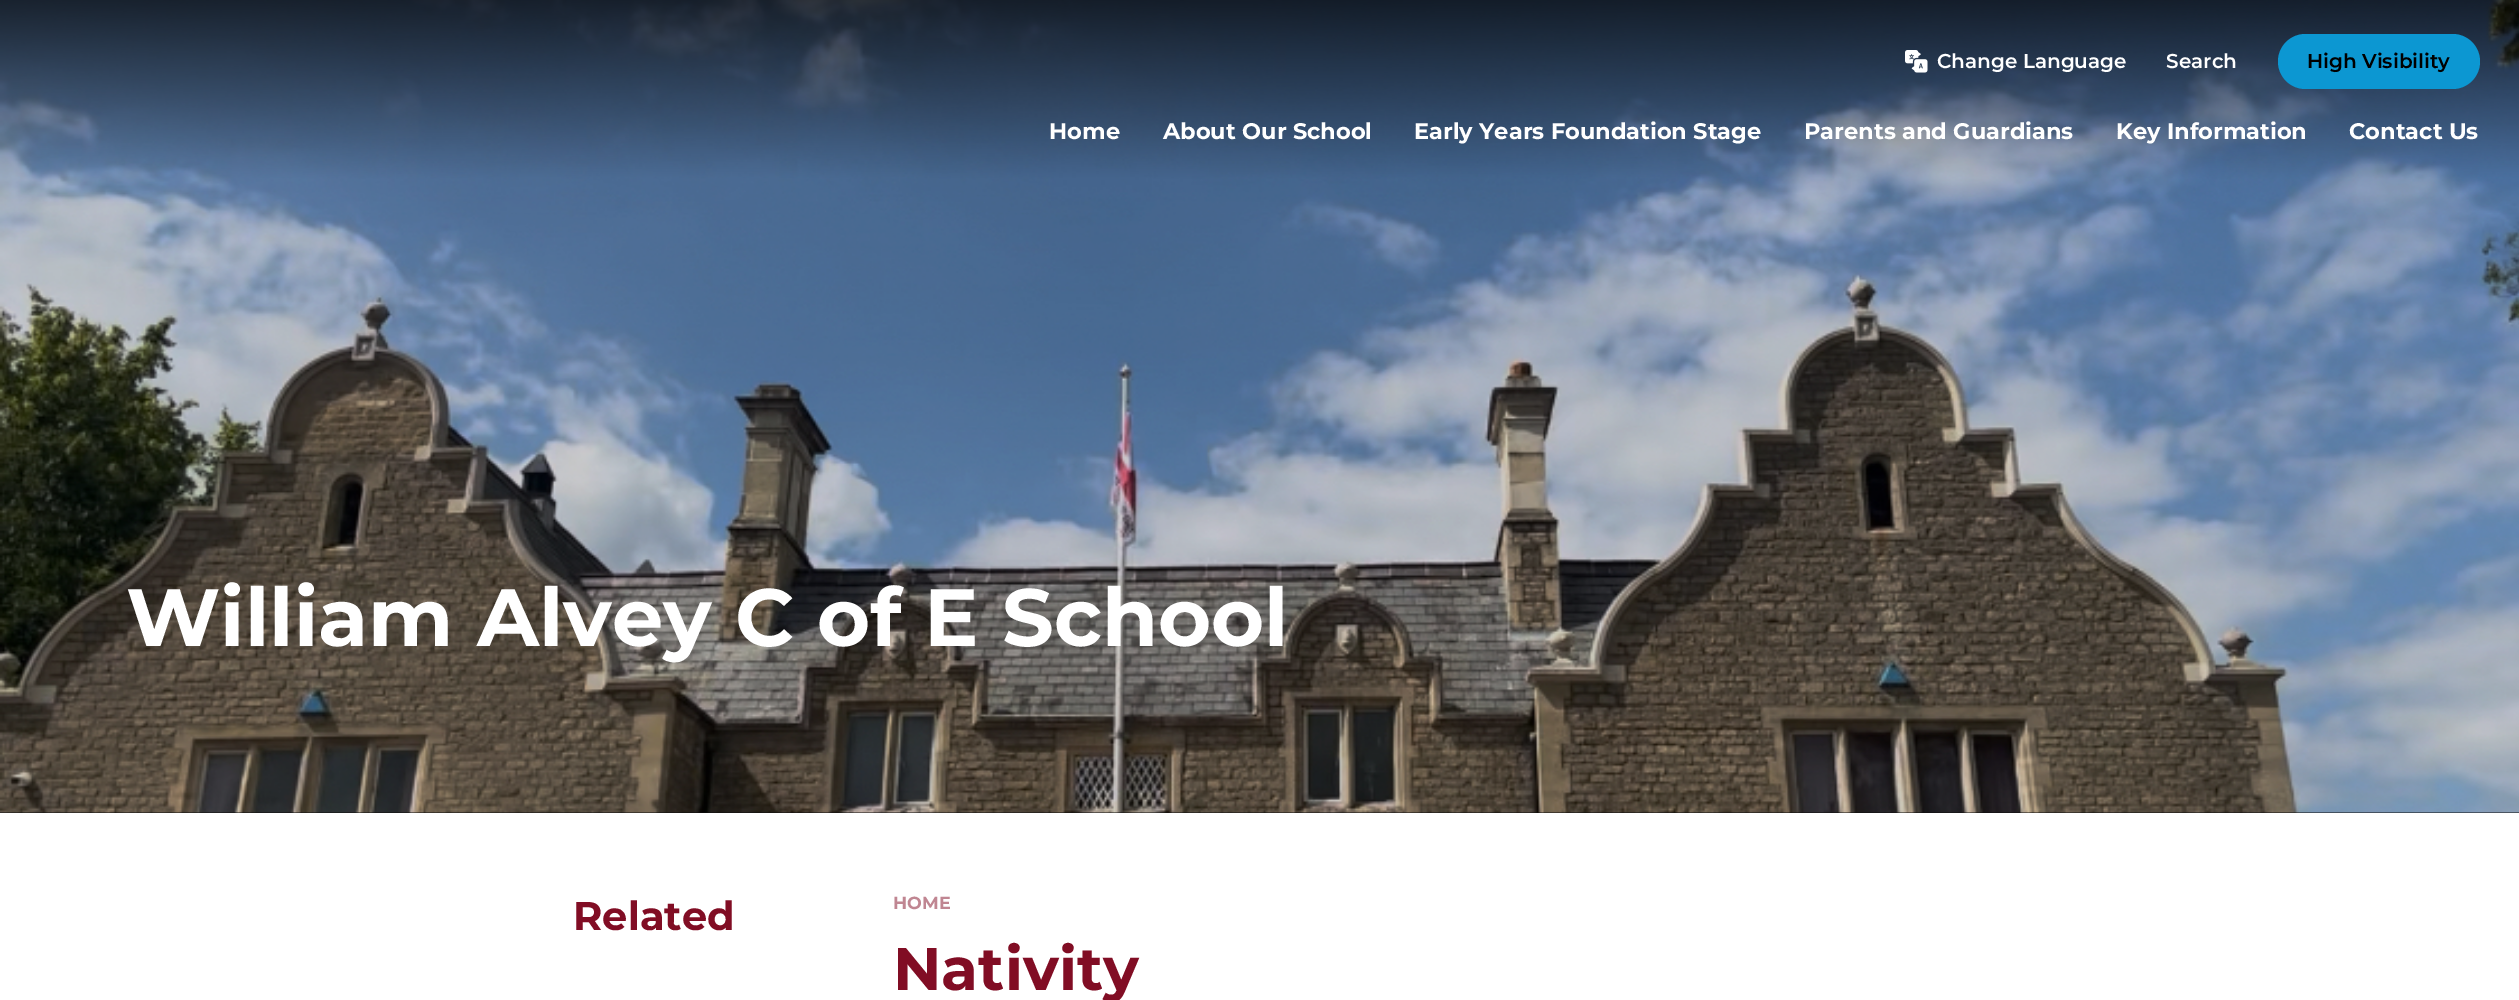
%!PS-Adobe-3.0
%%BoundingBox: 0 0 2519 1000
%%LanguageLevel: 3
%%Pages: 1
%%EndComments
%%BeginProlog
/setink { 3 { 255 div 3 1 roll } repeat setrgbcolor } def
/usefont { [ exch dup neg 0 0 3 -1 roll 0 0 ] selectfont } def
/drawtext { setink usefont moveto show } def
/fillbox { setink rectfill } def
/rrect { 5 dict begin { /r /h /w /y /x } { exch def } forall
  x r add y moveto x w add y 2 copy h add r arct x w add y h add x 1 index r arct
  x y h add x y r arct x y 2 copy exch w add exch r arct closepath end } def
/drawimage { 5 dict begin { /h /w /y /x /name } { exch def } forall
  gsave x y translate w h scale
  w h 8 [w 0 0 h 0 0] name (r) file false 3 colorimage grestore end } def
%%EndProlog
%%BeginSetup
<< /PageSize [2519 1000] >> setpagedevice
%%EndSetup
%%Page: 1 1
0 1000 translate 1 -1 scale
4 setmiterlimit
0 0 2519 1000 255 255 255 fillbox
0 812 2519 1 14 14 14 fillbox
(assets/img2.rgb) 0 0 2519 813 drawimage
(assets/img1.rgb) 1905 50 23 23 drawimage
(Change Language) 1937 68 /Montserrat-SemiBold 20 255 255 255 drawtext
(Search) 2166 68 /Montserrat-SemiBold 20 255 255 255 drawtext
12 151 210 setink
2278 34 202 55 27.5 rrect fill
(High Visibility) 2307 68 /Montserrat-SemiBold 20 0 0 0 drawtext
(Home) 1049 139 /Montserrat-Bold 22.5 255 255 255 drawtext
(About Our School) 1163 139 /Montserrat-Bold 22.5 255 255 255 drawtext
(Early Years Foundation Stage) 1414 139 /Montserrat-Bold 22.5 255 255 255 drawtext
(Parents and Guardians) 1804 139 /Montserrat-Bold 22.5 255 255 255 drawtext
(Key Information) 2116 139 /Montserrat-Bold 22.5 255 255 255 drawtext
(Contact Us) 2349 139 /Montserrat-Bold 22.5 255 255 255 drawtext
(William Alvey C of E School) 126 646 /Montserrat-Bold 81.25 255 255 255 drawtext
(Related) 573 930 /Montserrat-Bold 40 129 13 36 drawtext
(HOME) 893 909 /Montserrat-Bold 17.5 192 134 146 drawtext
(Nativity) 893 990 /Montserrat-Bold 60 129 13 36 drawtext
showpage
%%EOF
